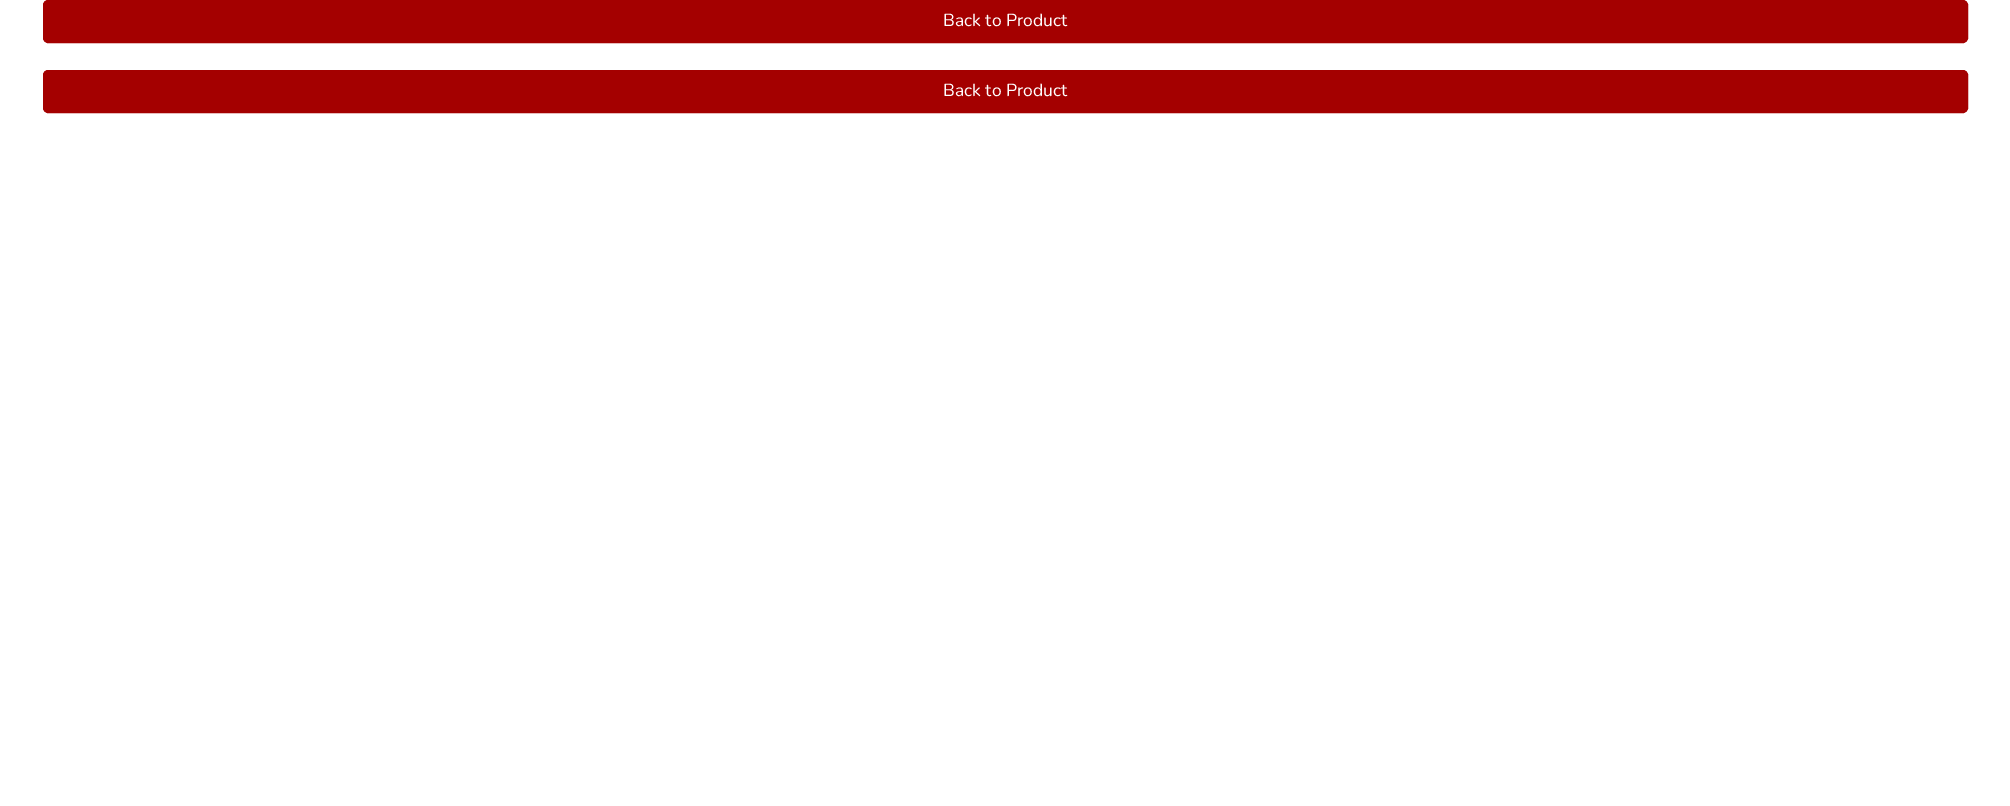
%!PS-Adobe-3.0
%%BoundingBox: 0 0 2010 806
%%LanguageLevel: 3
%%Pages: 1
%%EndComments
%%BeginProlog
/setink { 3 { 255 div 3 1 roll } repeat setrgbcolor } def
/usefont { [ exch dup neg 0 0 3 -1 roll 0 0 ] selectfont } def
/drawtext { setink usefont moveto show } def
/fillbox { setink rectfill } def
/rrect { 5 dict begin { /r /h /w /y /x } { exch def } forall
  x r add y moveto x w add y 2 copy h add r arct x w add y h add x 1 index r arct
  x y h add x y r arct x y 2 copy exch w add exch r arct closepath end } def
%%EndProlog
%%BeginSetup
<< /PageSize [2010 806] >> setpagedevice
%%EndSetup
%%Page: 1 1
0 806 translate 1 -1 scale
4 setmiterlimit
0 0 2010 806 255 255 255 fillbox
164 0 0 setink
43.5 0.5 1924 42 4.5 rrect gsave fill grestore
stroke
(Back to Product) 943 26 /Nunito-Regular 17.5 255 255 255 drawtext
164 0 0 setink
43.5 70.5 1924 42 4.5 rrect gsave fill grestore
stroke
(Back to Product) 943 96 /Nunito-Regular 17.5 255 255 255 drawtext
showpage
%%EOF
